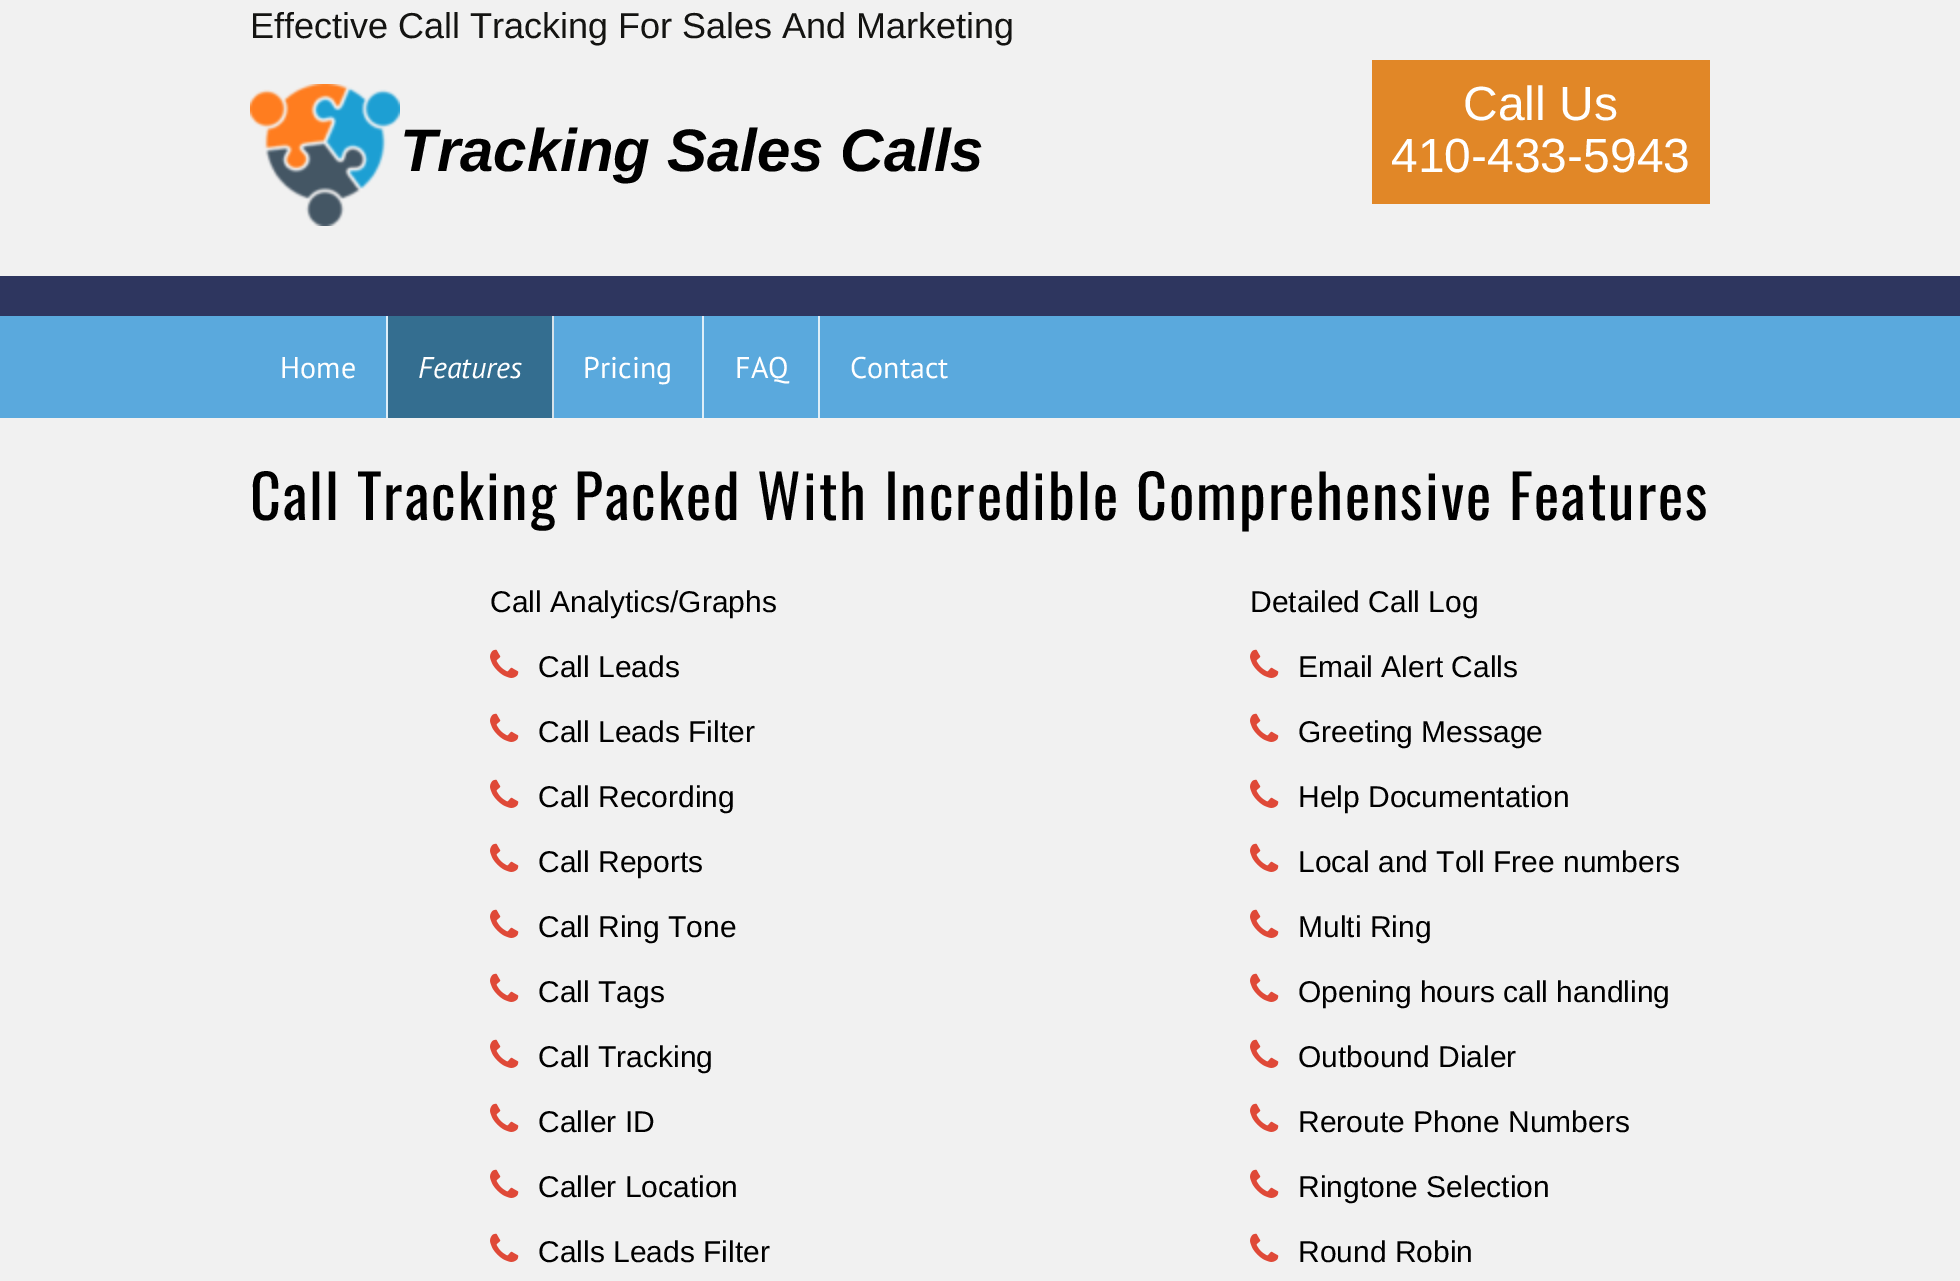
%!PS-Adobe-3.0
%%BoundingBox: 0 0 1960 1281
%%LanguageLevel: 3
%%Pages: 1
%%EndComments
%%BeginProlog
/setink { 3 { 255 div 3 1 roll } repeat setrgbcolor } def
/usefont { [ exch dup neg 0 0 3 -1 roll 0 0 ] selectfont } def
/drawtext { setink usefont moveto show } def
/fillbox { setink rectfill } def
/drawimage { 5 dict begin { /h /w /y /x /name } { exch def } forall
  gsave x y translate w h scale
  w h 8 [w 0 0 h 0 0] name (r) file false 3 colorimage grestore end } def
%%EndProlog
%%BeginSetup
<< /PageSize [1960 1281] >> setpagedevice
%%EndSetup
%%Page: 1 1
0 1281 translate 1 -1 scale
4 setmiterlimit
0 0 1960 1281 241 241 241 fillbox
(Effective Call Tracking For Sales And Marketing) 250 38 /LiberationSans-Regular 36 20 20 18 drawtext
(assets/img1.rgb) 250 84 150 142 drawimage
(Tracking Sales Calls) 400 171 /LiberationSans-BoldItalic 60 0 0 0 drawtext
1372 60 338 144 225 135 39 fillbox
(Call Us) 1463 120 /LiberationSans-Regular 48 255 255 255 drawtext
(410-433-5943) 1391 172 /LiberationSans-Regular 48 255 255 255 drawtext
0 276 1960 40 46 54 95 fillbox
0 316 1960 102 90 169 221 fillbox
386 316 2 102 222 238 248 fillbox
(Home) 280 378 /PTSans-Regular 30 255 255 255 drawtext
388 316 164 102 52 110 144 fillbox
552 316 2 102 214 226 233 fillbox
(Features) 418 378 /PTSans-Italic 30 255 255 255 drawtext
702 316 2 102 222 238 248 fillbox
(Pricing) 583 378 /PTSans-Regular 30 255 255 255 drawtext
818 316 2 102 222 238 248 fillbox
(FAQ) 735 378 /PTSans-Regular 30 255 255 255 drawtext
(Contact) 850 378 /PTSans-Regular 30 255 255 255 drawtext
/Oswald-Regular 60 usefont
0 0 0 setink
250 520 moveto 2 0 (Call Tracking Packed With Incredible Comprehensive Features) ashow
(Call Analytics/Graphs) 490 612 /LiberationSans-Regular 30 0 0 0 drawtext
(assets/img2.rgb) 490 649 29 29 drawimage
(Call Leads) 538 677 /LiberationSans-Regular 30 0 0 0 drawtext
(assets/img2.rgb) 490 713 29 29 drawimage
(Call Leads Filter) 538 742 /LiberationSans-Regular 30 0 0 0 drawtext
(assets/img2.rgb) 490 779 29 29 drawimage
(Call Recording) 538 807 /LiberationSans-Regular 30 0 0 0 drawtext
(assets/img2.rgb) 490 843 29 29 drawimage
(Call Reports) 538 872 /LiberationSans-Regular 30 0 0 0 drawtext
(assets/img2.rgb) 490 909 29 29 drawimage
(Call Ring Tone) 538 937 /LiberationSans-Regular 30 0 0 0 drawtext
(assets/img2.rgb) 490 973 29 29 drawimage
(Call Tags) 538 1002 /LiberationSans-Regular 30 0 0 0 drawtext
(assets/img2.rgb) 490 1039 29 29 drawimage
(Call Tracking) 538 1067 /LiberationSans-Regular 30 0 0 0 drawtext
(assets/img2.rgb) 490 1103 29 29 drawimage
(Caller ID) 538 1132 /LiberationSans-Regular 30 0 0 0 drawtext
(assets/img2.rgb) 490 1169 29 29 drawimage
(Caller Location) 538 1197 /LiberationSans-Regular 30 0 0 0 drawtext
(assets/img2.rgb) 490 1233 29 29 drawimage
(Calls Leads Filter) 538 1262 /LiberationSans-Regular 30 0 0 0 drawtext
(Detailed Call Log) 1250 612 /LiberationSans-Regular 30 0 0 0 drawtext
(assets/img2.rgb) 1250 649 29 29 drawimage
(Email Alert Calls) 1298 677 /LiberationSans-Regular 30 0 0 0 drawtext
(assets/img2.rgb) 1250 713 29 29 drawimage
(Greeting Message) 1298 742 /LiberationSans-Regular 30 0 0 0 drawtext
(assets/img2.rgb) 1250 779 29 29 drawimage
(Help Documentation) 1298 807 /LiberationSans-Regular 30 0 0 0 drawtext
(assets/img2.rgb) 1250 843 29 29 drawimage
(Local and Toll Free numbers) 1298 872 /LiberationSans-Regular 30 0 0 0 drawtext
(assets/img2.rgb) 1250 909 29 29 drawimage
(Multi Ring) 1298 937 /LiberationSans-Regular 30 0 0 0 drawtext
(assets/img2.rgb) 1250 973 29 29 drawimage
(Opening hours call handling) 1298 1002 /LiberationSans-Regular 30 0 0 0 drawtext
(assets/img2.rgb) 1250 1039 29 29 drawimage
(Outbound Dialer) 1298 1067 /LiberationSans-Regular 30 0 0 0 drawtext
(assets/img2.rgb) 1250 1103 29 29 drawimage
(Reroute Phone Numbers) 1298 1132 /LiberationSans-Regular 30 0 0 0 drawtext
(assets/img2.rgb) 1250 1169 29 29 drawimage
(Ringtone Selection) 1298 1197 /LiberationSans-Regular 30 0 0 0 drawtext
(assets/img2.rgb) 1250 1233 29 29 drawimage
(Round Robin) 1298 1262 /LiberationSans-Regular 30 0 0 0 drawtext
showpage
%%EOF
